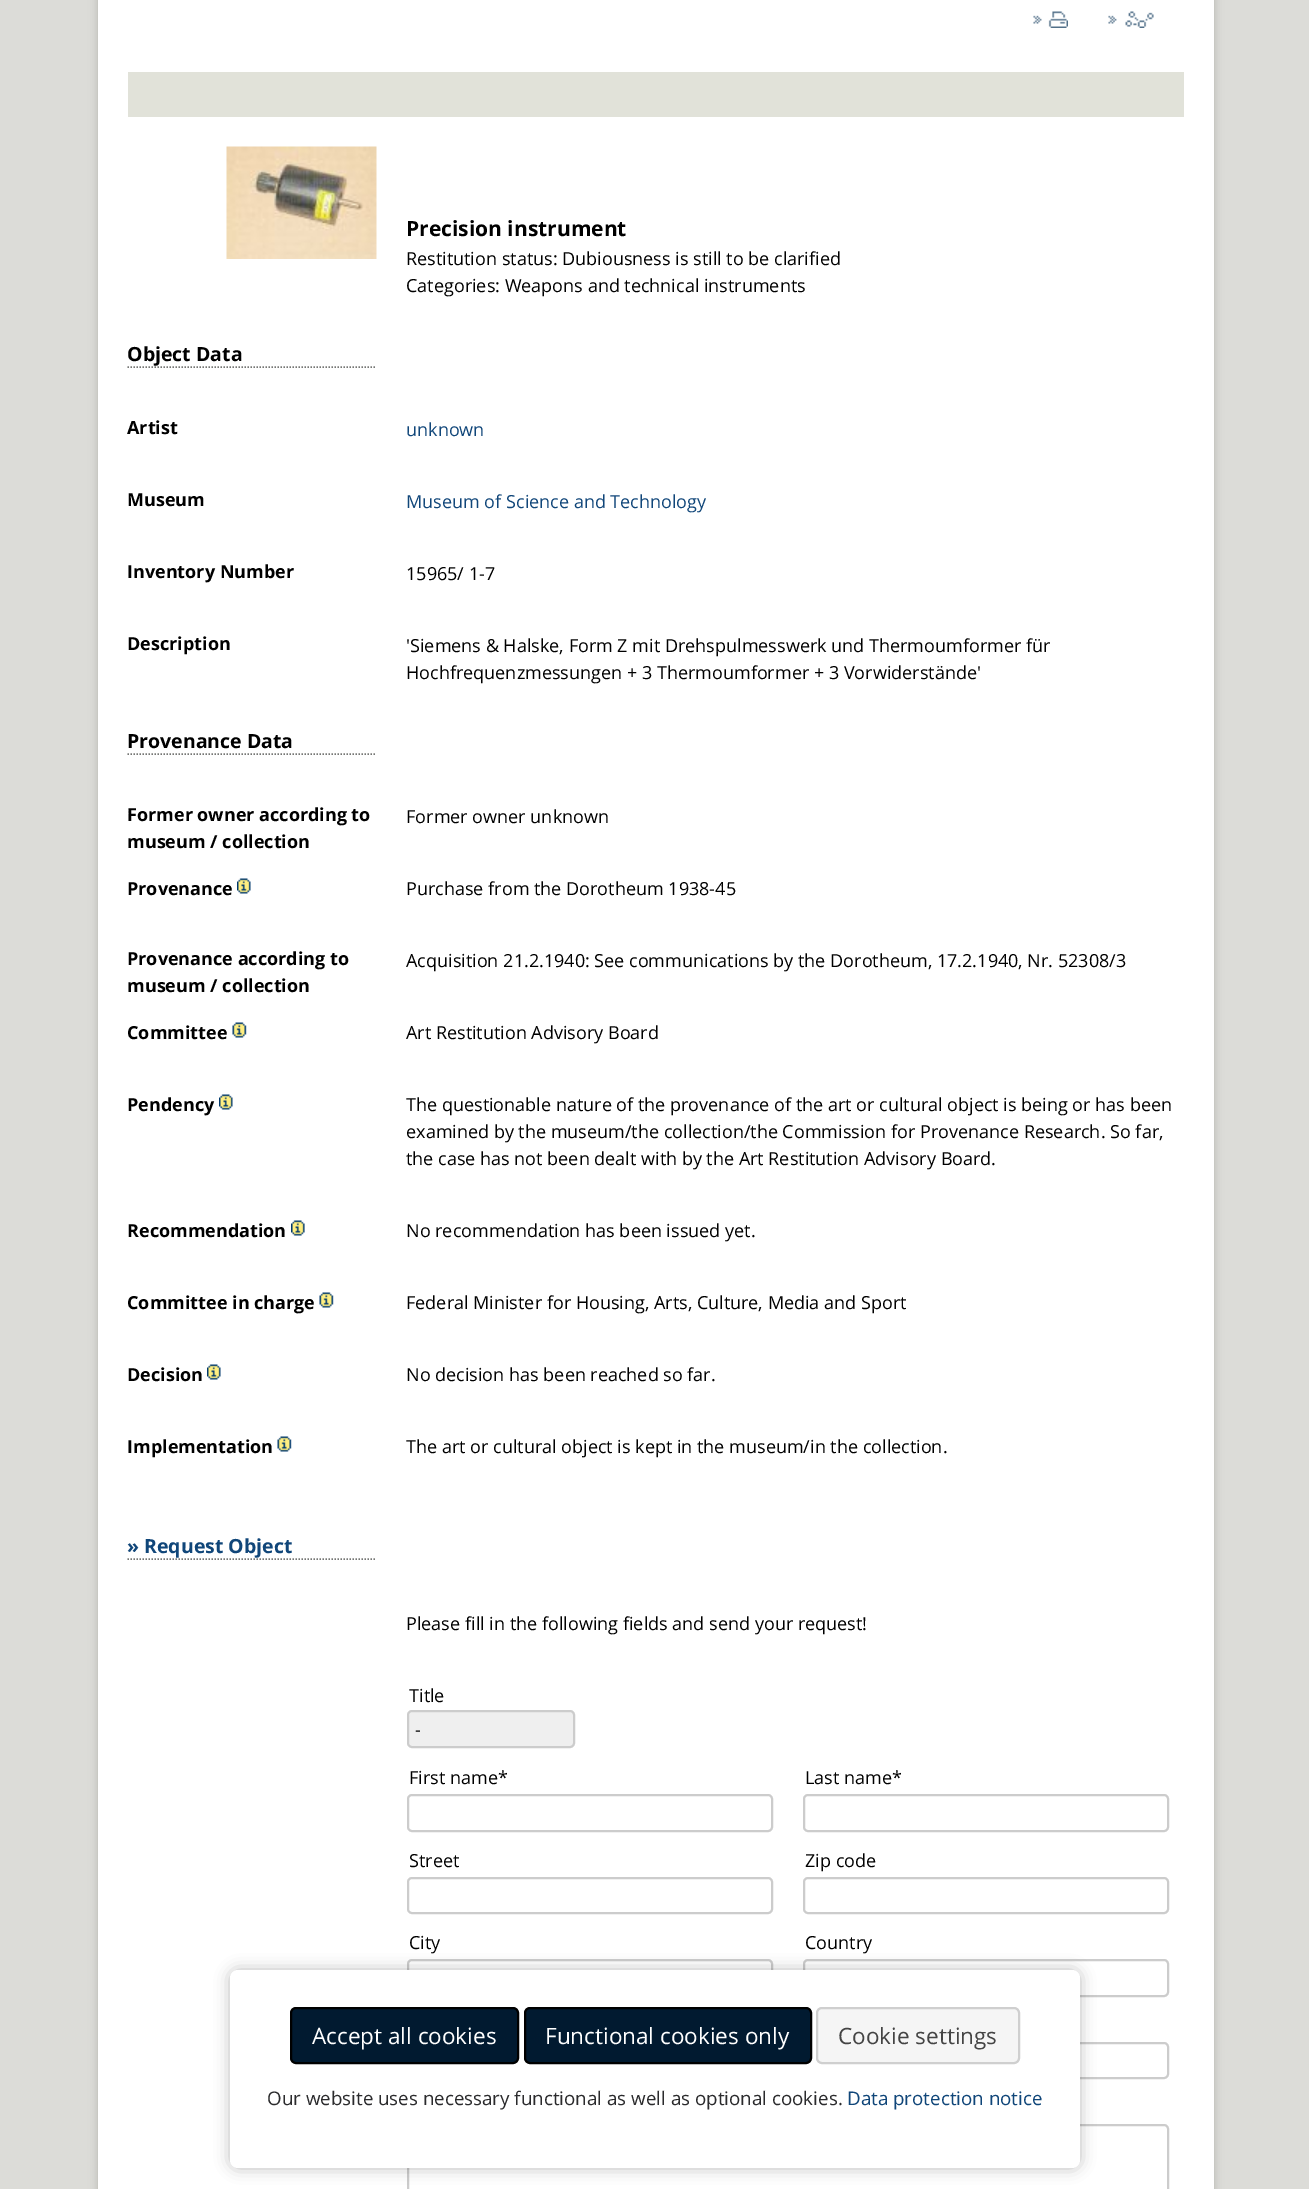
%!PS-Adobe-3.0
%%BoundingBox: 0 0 1309 2189
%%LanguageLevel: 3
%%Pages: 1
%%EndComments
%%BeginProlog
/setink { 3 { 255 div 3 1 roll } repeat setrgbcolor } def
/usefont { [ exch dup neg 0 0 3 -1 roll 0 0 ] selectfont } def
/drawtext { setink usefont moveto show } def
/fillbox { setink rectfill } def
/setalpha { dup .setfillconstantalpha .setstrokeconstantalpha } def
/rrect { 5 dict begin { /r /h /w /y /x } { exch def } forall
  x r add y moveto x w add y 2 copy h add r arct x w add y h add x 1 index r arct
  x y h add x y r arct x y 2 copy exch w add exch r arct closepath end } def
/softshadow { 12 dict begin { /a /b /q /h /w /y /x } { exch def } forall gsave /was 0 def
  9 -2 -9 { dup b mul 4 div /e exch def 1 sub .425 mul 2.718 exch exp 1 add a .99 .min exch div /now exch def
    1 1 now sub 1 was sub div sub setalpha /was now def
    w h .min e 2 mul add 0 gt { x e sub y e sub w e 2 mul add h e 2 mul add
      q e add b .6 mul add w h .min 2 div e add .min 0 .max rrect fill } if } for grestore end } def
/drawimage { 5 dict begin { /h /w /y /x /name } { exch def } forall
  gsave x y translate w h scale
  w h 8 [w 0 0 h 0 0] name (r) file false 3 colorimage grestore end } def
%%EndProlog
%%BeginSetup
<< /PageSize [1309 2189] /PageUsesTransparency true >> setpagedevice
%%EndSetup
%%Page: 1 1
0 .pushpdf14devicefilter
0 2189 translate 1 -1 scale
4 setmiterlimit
0 0 1309 2189 220 220 216 fillbox
84 84 72 setink
98 -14 1116 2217 0 4.5 0.3 softshadow
98 0 1116 2189 255 255 255 fillbox
(assets/img1.rgb) 1033 11 35 17 drawimage
(assets/img2.rgb) 1108 11 46 17 drawimage
128 72 1056 45 225 226 217 fillbox
(assets/img3.rgb) 226 146 151 113 drawimage
(Precision instrument) 406 236 /OpenSans-Bold 21 0 0 0 drawtext
(Restitution status: Dubiousness is still to be clarified) 406 265 /OpenSans-Regular 18 0 0 0 drawtext
(Categories: Weapons and technical instruments) 406 292 /OpenSans-Regular 18 0 0 0 drawtext
117 118 116 setink
1.5 setlinewidth
[1.5 1.5] 0 setdash
127.5 367 moveto 376.5 367 lineto stroke
(Object Data) 127 361 /OpenSans-Bold 19.5 0 0 0 drawtext
(Artist) 127 434 /OpenSans-Bold 18 0 0 0 drawtext
(unknown) 406 436 /OpenSans-Regular 18 16 70 121 drawtext
(Museum) 127 506 /OpenSans-Bold 18 0 0 0 drawtext
(Museum of Science and Technology) 406 508 /OpenSans-Regular 18 16 70 121 drawtext
(Inventory Number) 127 578 /OpenSans-Bold 18 0 0 0 drawtext
(15965/ 1-7) 406 580 /OpenSans-Regular 18 0 0 0 drawtext
(Description) 127 650 /OpenSans-Bold 18 0 0 0 drawtext
('Siemens & Halske, Form Z mit Drehspulmesswerk und Thermoumformer für) 406 652 /OpenSans-Regular 18 0 0 0 drawtext
(Hochfrequenzmessungen + 3 Thermoumformer + 3 Vorwiderstände') 406 679 /OpenSans-Regular 18 0 0 0 drawtext
117 118 116 setink
127.5 754 moveto 376.5 754 lineto stroke
(Provenance Data) 127 748 /OpenSans-Bold 19.5 0 0 0 drawtext
(Former owner according to) 127 821 /OpenSans-Bold 18 0 0 0 drawtext
(museum / collection) 127 848 /OpenSans-Bold 18 0 0 0 drawtext
(Former owner unknown) 406 823 /OpenSans-Regular 18 0 0 0 drawtext
(Provenance) 127 895 /OpenSans-Bold 18 0 0 0 drawtext
(assets/img4.rgb) 237 878 14 16 drawimage
(Purchase from the Dorotheum 1938-45) 406 895 /OpenSans-Regular 18 0 0 0 drawtext
(Provenance according to) 127 965 /OpenSans-Bold 18 0 0 0 drawtext
(museum / collection) 127 992 /OpenSans-Bold 18 0 0 0 drawtext
(Acquisition 21.2.1940: See communications by the Dorotheum, 17.2.1940, Nr. 52308/3) 406 967 /OpenSans-Regular 18 0 0 0 drawtext
(Committee) 127 1039 /OpenSans-Bold 18 0 0 0 drawtext
(assets/img5.rgb) 232 1022 15 16 drawimage
(Art Restitution Advisory Board) 406 1039 /OpenSans-Regular 18 0 0 0 drawtext
(Pendency) 127 1111 /OpenSans-Bold 18 0 0 0 drawtext
(assets/img4.rgb) 219 1094 14 16 drawimage
(The questionable nature of the provenance of the art or cultural object is being or has been) 406 1111 /OpenSans-Regular 18 0 0 0 drawtext
(examined by the museum/the collection/the Commission for Provenance Research. So far,) 406 1138 /OpenSans-Regular 18 0 0 0 drawtext
(the case has not been dealt with by the Art Restitution Advisory Board.) 406 1165 /OpenSans-Regular 18 0 0 0 drawtext
(Recommendation) 127 1237 /OpenSans-Bold 18 0 0 0 drawtext
(assets/img6.rgb) 291 1220 14 16 drawimage
(No recommendation has been issued yet.) 406 1237 /OpenSans-Regular 18 0 0 0 drawtext
(Committee in charge) 127 1309 /OpenSans-Bold 18 0 0 0 drawtext
(assets/img5.rgb) 319 1292 15 16 drawimage
(Federal Minister for Housing, Arts, Culture, Media and Sport) 406 1309 /OpenSans-Regular 18 0 0 0 drawtext
(Decision) 127 1381 /OpenSans-Bold 18 0 0 0 drawtext
(assets/img4.rgb) 207 1364 14 16 drawimage
(No decision has been reached so far.) 406 1381 /OpenSans-Regular 18 0 0 0 drawtext
(Implementation) 127 1453 /OpenSans-Bold 18 0 0 0 drawtext
(assets/img5.rgb) 277 1436 15 16 drawimage
(The art or cultural object is kept in the museum/in the collection.) 406 1453 /OpenSans-Regular 18 0 0 0 drawtext
117 118 116 setink
127.5 1559 moveto 376.5 1559 lineto stroke
(» Request Object) 127 1553 /OpenSans-Bold 19.5 16 70 121 drawtext
(Please fill in the following fields and send your request!) 406 1630 /OpenSans-Regular 18 0 0 0 drawtext
(Title) 409 1702 /OpenSans-Regular 18 0 0 0 drawtext
239 239 239 setink
408 1711 166 36 4 rrect gsave fill grestore
204 204 204 setink
2 setlinewidth
[] 0 setdash
stroke
(-) 415 1736 /OpenSans-Regular 18 0 0 0 drawtext
(First name*) 409 1784 /OpenSans-Regular 18 0 0 0 drawtext
204 204 204 setink
408 1795 364 36 4 rrect stroke
(Last name*) 805 1784 /OpenSans-Regular 18 0 0 0 drawtext
204 204 204 setink
804 1795 364 36 4 rrect stroke
(Street) 409 1867 /OpenSans-Regular 18 0 0 0 drawtext
204 204 204 setink
408 1878 364 35 4 rrect stroke
(Zip code) 805 1867 /OpenSans-Regular 18 0 0 0 drawtext
204 204 204 setink
804 1878 364 35 4 rrect stroke
(City) 409 1949 /OpenSans-Regular 18 0 0 0 drawtext
204 204 204 setink
408 1960 364 36 4 rrect stroke
(Country) 805 1949 /OpenSans-Regular 18 0 0 0 drawtext
204 204 204 setink
804 1960 364 36 4 rrect stroke
804 2043 364 35 4 rrect stroke
408 2125 760 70 4 rrect stroke
0 0 0 setink
230 1970 850 198 8 7.5 0.25 softshadow
255 255 255 setink
230 1970 850 198 8 rrect fill
1 26 48 setink
291 2008 227 55 5 rrect gsave fill grestore
0 0 0 setink
stroke
(Accept all cookies) 312 2044 /OpenSans-Regular 22.5 255 255 255 drawtext
1 26 48 setink
525 2008 286 55 5 rrect gsave fill grestore
0 0 0 setink
stroke
(Functional cookies only) 545 2044 /OpenSans-Regular 22.5 255 255 255 drawtext
245 245 245 setink
817 2008 202 55 5 rrect gsave fill grestore
207 207 207 setink
stroke
(Cookie settings) 838 2044 /OpenSans-Regular 22.5 68 68 68 drawtext
(Our website uses necessary functional as well as optional cookies.) 267 2105 /OpenSans-Regular 18.75 43 43 45 drawtext
(Data protection notice) 847 2105 /OpenSans-Regular 18.75 16 70 121 drawtext
.poppdf14devicefilter showpage
%%EOF
